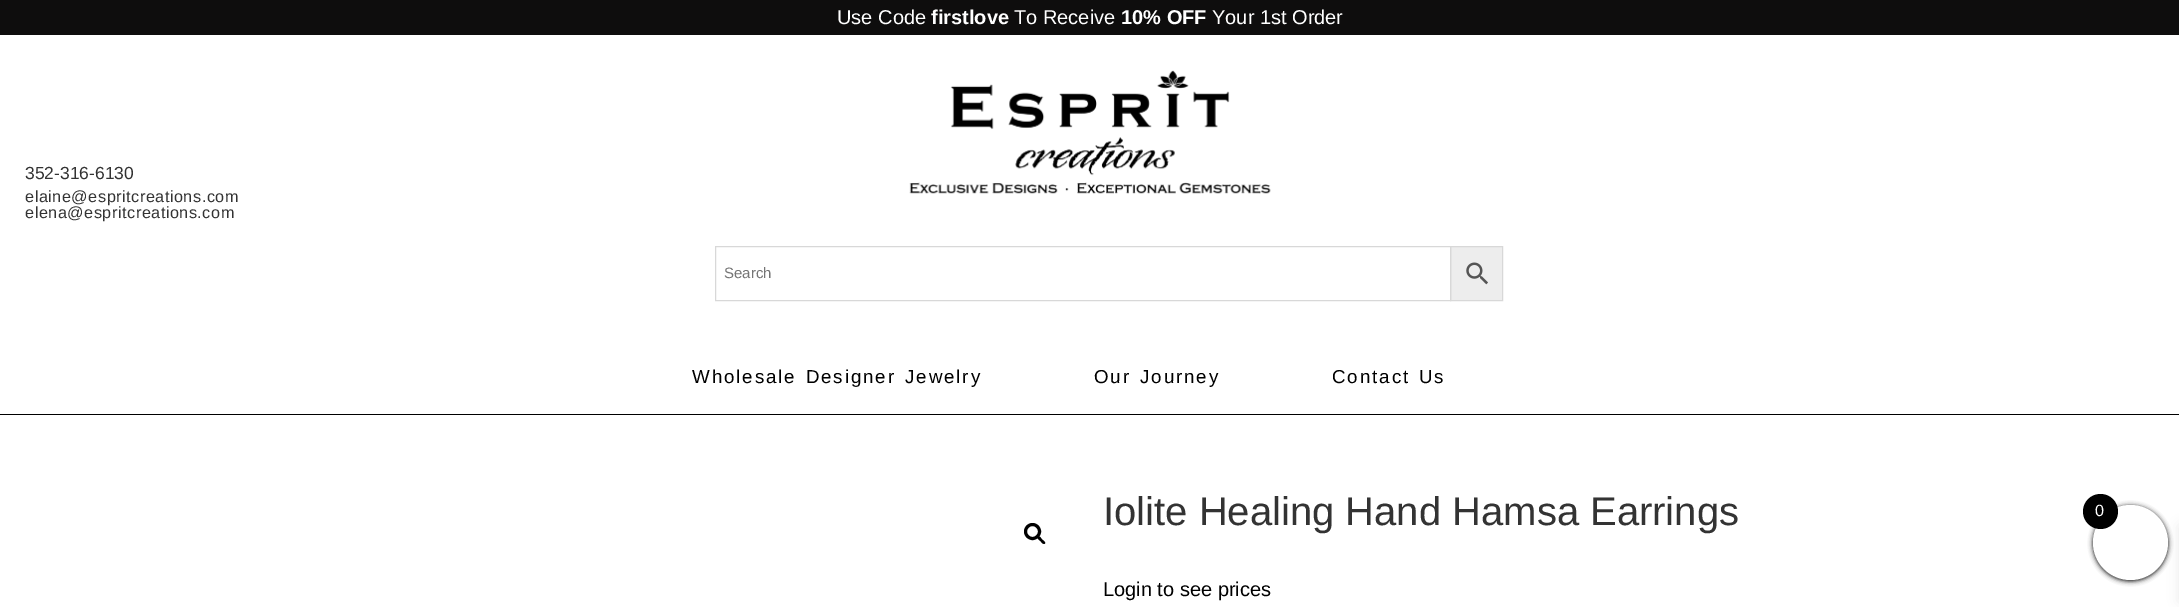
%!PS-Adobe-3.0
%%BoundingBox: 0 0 2179 607
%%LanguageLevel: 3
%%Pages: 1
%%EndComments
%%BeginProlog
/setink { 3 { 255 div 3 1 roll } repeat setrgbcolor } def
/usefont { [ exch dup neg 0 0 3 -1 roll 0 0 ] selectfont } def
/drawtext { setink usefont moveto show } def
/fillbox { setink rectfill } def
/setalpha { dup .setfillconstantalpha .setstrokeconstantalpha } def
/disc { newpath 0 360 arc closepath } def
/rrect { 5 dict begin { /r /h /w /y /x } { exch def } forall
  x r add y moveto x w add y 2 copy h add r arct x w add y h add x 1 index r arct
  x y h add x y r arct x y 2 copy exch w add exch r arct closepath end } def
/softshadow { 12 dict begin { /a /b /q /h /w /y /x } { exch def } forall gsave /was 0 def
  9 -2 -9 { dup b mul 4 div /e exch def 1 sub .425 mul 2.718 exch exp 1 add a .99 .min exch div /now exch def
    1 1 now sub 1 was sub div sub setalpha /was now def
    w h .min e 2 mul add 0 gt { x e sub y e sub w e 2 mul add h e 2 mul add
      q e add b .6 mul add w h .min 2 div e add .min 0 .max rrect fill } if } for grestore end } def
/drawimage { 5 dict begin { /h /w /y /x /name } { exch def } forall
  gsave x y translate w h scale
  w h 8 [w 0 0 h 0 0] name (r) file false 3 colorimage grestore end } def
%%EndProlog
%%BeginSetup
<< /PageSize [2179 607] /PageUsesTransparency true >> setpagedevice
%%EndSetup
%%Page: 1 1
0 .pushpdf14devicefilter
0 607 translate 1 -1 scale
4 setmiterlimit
0 0 2179 607 255 255 255 fillbox
0 0 2179 35 14 13 13 fillbox
(Use Code) 837 24 /LiberationSans-Regular 20 255 255 255 drawtext
(firstlove) 931 24 /LiberationSans-Bold 20 255 255 255 drawtext
(To Receive) 1014 24 /LiberationSans-Regular 20 255 255 255 drawtext
(10% OFF) 1121 24 /LiberationSans-Bold 20 255 255 255 drawtext
(Your 1st Order) 1212 24 /LiberationSans-Regular 20 255 255 255 drawtext
(352-316-6130) 25 179 /LiberationSans-Regular 17.5 51 51 51 drawtext
/LiberationSans-Regular 16.25 usefont
25 202 moveto 0.5 0 (elaine@espritcreations.com) ashow
25 218 moveto 0.5 0 (elena@espritcreations.com) ashow
(assets/img1.rgb) 909 70 362 124 drawimage
237 237 237 setink
1450.5 246.5 moveto 1502.5 246.5 lineto 1502.5 300.5 lineto 1450.5 300.5 lineto closepath gsave fill grestore
216 216 216 setink
stroke
715.5 246.5 735 54 rectstroke
(Search) 724 278 /LiberationSans-Regular 15 117 117 117 drawtext
(assets/img2.rgb) 1466 262 22 23 drawimage
/LiberationSans-Regular 18.75 usefont
0 0 0 setink
692 383 moveto 2 0 32 1.9 0 (Wholesale Designer Jewelry) awidthshow
1094 383 moveto 2 0 32 1.9 0 (Our Journey) awidthshow
1332 383 moveto 2 0 32 1.9 0 (Contact Us) awidthshow
0 414 2179 1 0 0 0 fillbox
3 setlinewidth
1032.5 531.5 7 disc stroke
1037.5 536.5 moveto 1039 535 1041.5 538.5 1042 539.5 curveto 1043 540 1046 542.5 1045 543.5 curveto 1043.5 545 1041 542 1040.5 541 curveto 1039.5 540.5 1036.5 538 1037.5 536.5 curveto closepath fill
(Iolite Healing Hand Hamsa Earrings) 1103 525 /LiberationSans-Regular 40 51 51 51 drawtext
(Login to see prices) 1103 596 /LiberationSans-Regular 20 0 0 0 drawtext
2093 506 75 75 37.5 2.5 1 softshadow
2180 526 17 75 0 6 0.1 softshadow
255 255 255 setink
2130.5 542.5 37.5 disc fill
0 0 0 setink
2100.5 511.5 17.5 disc fill
(0) 2095 516 /LiberationSans-Regular 16.25 255 255 255 drawtext
.poppdf14devicefilter showpage
%%EOF
